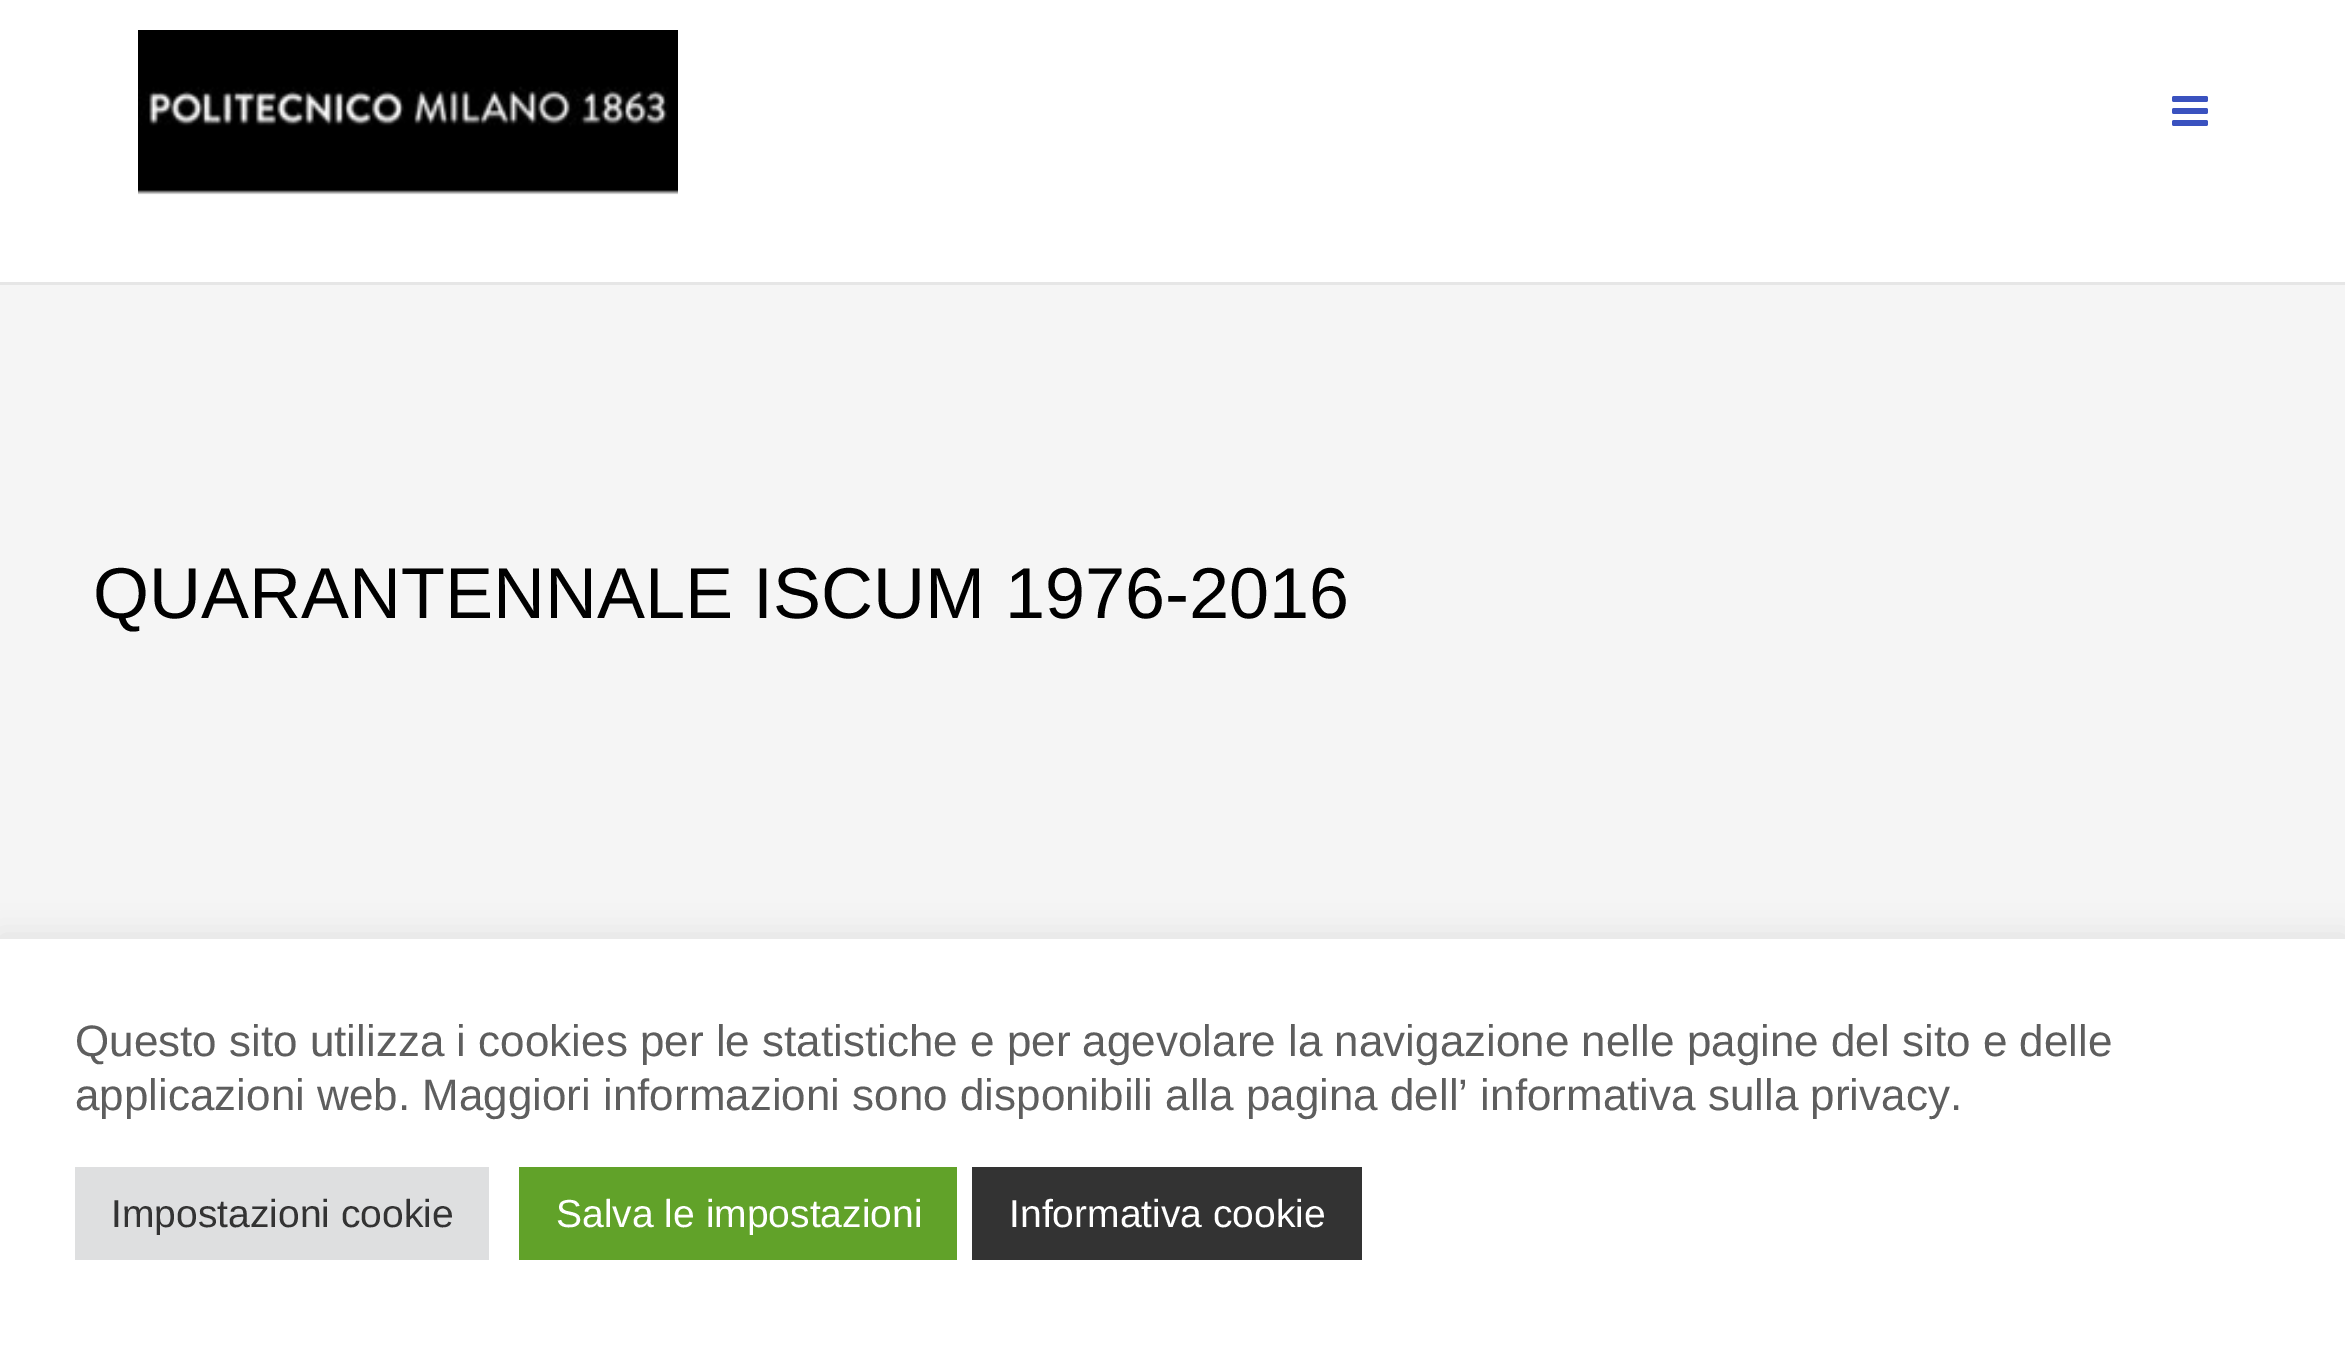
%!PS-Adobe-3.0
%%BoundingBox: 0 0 2345 1348
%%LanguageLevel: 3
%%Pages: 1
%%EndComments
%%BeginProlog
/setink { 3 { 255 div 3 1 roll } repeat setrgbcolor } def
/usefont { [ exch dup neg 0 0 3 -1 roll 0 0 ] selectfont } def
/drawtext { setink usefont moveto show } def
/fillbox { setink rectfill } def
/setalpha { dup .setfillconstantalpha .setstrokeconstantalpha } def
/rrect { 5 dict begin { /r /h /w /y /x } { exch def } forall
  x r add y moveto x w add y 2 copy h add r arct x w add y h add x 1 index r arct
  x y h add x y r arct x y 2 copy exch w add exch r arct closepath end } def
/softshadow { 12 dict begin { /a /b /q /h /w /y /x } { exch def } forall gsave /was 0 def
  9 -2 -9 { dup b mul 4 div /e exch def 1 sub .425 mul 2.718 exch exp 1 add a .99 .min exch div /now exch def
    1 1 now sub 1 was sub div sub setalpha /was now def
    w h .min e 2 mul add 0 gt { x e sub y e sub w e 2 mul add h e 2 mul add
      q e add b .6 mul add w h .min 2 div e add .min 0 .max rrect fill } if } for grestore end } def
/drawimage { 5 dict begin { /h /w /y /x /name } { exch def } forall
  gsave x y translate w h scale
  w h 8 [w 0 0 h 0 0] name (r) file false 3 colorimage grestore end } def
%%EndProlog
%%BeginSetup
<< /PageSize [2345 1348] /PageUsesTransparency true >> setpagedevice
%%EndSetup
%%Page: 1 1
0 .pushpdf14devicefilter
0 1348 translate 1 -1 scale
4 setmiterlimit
0 0 2345 1348 255 255 255 fillbox
0 282 2345 3 230 230 230 fillbox
(assets/img1.rgb) 138 30 540 165 drawimage
(assets/img2.rgb) 2172 96 36 30 drawimage
0 285 2345 654 245 245 245 fillbox
(QUARANTENNALE ISCUM 1976-2016) 93 618 /LiberationSans-Regular 72 0 0 0 drawtext
172 171 171 setink
0 936 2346 411 0 15 0.3 softshadow
0 939 2345 409 255 255 255 fillbox
(Questo sito utilizza i cookies per le statistiche e per agevolare la navigazione nelle pagine del sito e delle) 75 1056 /LiberationSans-Regular 44 94 94 94 drawtext
75 1110 moveto -0.1 0 32 (applicazioni web. Maggiori informazioni sono disponibili alla pagina dell’ informativa sulla privacy.) widthshow
75 1167 414 93 222 223 224 fillbox
(Impostazioni cookie) 111 1227 /LiberationSans-Regular 39 51 51 51 drawtext
519 1167 438 93 97 162 41 fillbox
(Salva le impostazioni) 556 1227 /LiberationSans-Regular 39 255 255 255 drawtext
972 1167 390 93 51 51 51 fillbox
(Informativa cookie) 1009 1227 /LiberationSans-Regular 39 255 255 255 drawtext
.poppdf14devicefilter showpage
%%EOF
